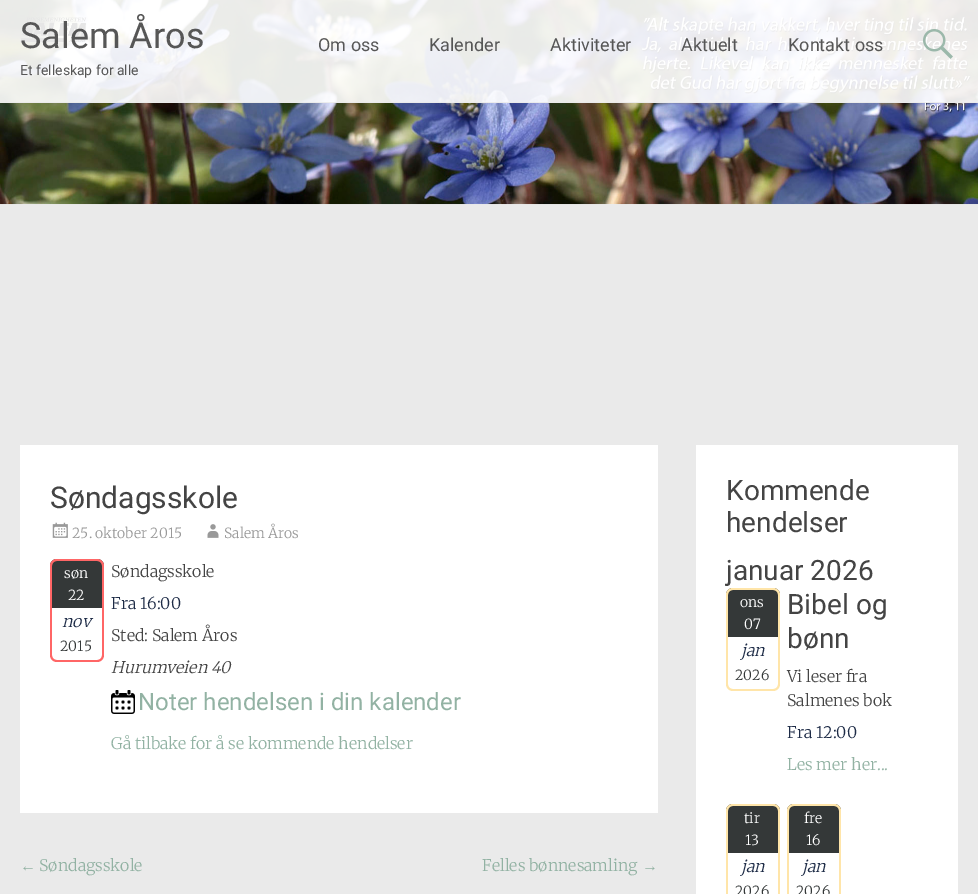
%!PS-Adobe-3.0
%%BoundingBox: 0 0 978 894
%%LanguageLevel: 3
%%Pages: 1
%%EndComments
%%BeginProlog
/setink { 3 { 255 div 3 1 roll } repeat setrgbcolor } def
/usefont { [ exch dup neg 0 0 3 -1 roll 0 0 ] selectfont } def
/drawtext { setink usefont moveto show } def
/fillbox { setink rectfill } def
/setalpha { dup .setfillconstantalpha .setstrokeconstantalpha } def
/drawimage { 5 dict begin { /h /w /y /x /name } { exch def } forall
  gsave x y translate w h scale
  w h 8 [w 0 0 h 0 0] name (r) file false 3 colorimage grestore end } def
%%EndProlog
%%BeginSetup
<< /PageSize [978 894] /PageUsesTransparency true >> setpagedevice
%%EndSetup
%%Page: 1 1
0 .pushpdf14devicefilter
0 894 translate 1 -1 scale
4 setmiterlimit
0 0 978 894 234 234 234 fillbox
(assets/img1.rgb) 0 0 978 205 drawimage
0.9 setalpha
0 0 978 103 255 255 255 fillbox
10 102 968 1 234 234 234 fillbox
1 setalpha
(Salem Åros) 20 48 /Roboto-Regular 36 86 86 86 drawtext
(Et felleskap for alle) 20 75 /Roboto-Regular 14 86 86 86 drawtext
(Om oss) 318 51 /Roboto-Regular 18 86 86 86 drawtext
(Kalender) 429 51 /Roboto-Regular 18 86 86 86 drawtext
(Aktiviteter) 550 51 /Roboto-Regular 18 86 86 86 drawtext
(Aktuelt) 681 51 /Roboto-Regular 18 86 86 86 drawtext
(Kontakt oss) 788 51 /Roboto-Regular 18 86 86 86 drawtext
(assets/img2.rgb) 923 29 30 30 drawimage
20 445 638 368 255 255 255 fillbox
(Søndagsskole) 50 508 /Roboto-Regular 30 68 68 68 drawtext
(assets/img3.rgb) 52 522 16 16 drawimage
(25. oktober 2015) 72 538 /Merriweather-Light 14 153 153 153 drawtext
(assets/img4.rgb) 207 524 12 14 drawimage
(Salem Åros) 224 538 /Merriweather-Light 14 153 153 153 drawtext
52 56 56 setink
57 559 moveto 97 559 lineto 101 559 104 562 104 566 curveto 104 608 lineto 50 608 lineto 50 566 lineto 50 562 53 559 57 559 curveto closepath fill
255 102 102 setink
57 559 moveto 97 559 lineto 101 559 104 562 104 566 curveto 104 608 lineto 50 608 lineto 50 566 lineto 50 562 53 559 57 559 curveto closepath 57 561 moveto 97 561 lineto 100 561 102 563 102 566 curveto 102 608 lineto 52 608 lineto 52 566 lineto 52 563 54 561 57 561 curveto closepath eofill
(søn) 64 578 /Merriweather-Light 14 255 255 255 drawtext
(22) 68 600 /Merriweather-Light 14 255 255 255 drawtext
255 102 102 setink
50 608 moveto 104 608 lineto 104 655 lineto 104 659 101 662 97 662 curveto 57 662 lineto 53 662 50 659 50 655 curveto closepath 52 608 moveto 102 608 lineto 102 655 lineto 102 658 100 660 97 660 curveto 57 660 lineto 54 660 52 658 52 655 curveto closepath eofill
(nov) 62 627 /Merriweather-LightItalic 16 30 44 71 drawtext
(2015) 60 651 /Merriweather-Light 14 52 56 56 drawtext
(Søndagsskole) 111 577 /Merriweather-Light 16 68 68 68 drawtext
(Fra 16:00) 111 609 /Merriweather-Light 16 30 44 71 drawtext
(Sted: Salem Åros) 111 641 /Merriweather-Light 16 68 68 68 drawtext
(Hurumveien 40) 111 673 /Merriweather-LightItalic 16 68 68 68 drawtext
(assets/img5.rgb) 111 690 24 24 drawimage
(Noter hendelsen i din kalender) 138 710 /Roboto-Regular 24 146 178 163 drawtext
(Gå tilbake for å se kommende hendelser) 111 749 /Merriweather-Light 16 146 178 163 drawtext
(←) 20 871 /LiberationSerif-Regular 16 146 178 163 drawtext
(Søndagsskole) 39 871 /Merriweather-Light 16 146 178 163 drawtext
(Felles bønnesamling) 482 871 /Merriweather-Light 16 146 178 163 drawtext
(→) 642 871 /LiberationSerif-Regular 16 146 178 163 drawtext
696 445 262 449 255 255 255 fillbox
(Kommende) 726 500 /Roboto-Regular 28 68 68 68 drawtext
(hendelser) 726 532 /Roboto-Regular 28 68 68 68 drawtext
(januar 2026) 726 580 /Roboto-Regular 28 68 68 68 drawtext
52 56 56 setink
733 588 moveto 773 588 lineto 777 588 780 591 780 595 curveto 780 637 lineto 726 637 lineto 726 595 lineto 726 591 729 588 733 588 curveto closepath fill
255 229 169 setink
733 588 moveto 773 588 lineto 777 588 780 591 780 595 curveto 780 637 lineto 726 637 lineto 726 595 lineto 726 591 729 588 733 588 curveto closepath 733 590 moveto 773 590 lineto 776 590 778 592 778 595 curveto 778 637 lineto 728 637 lineto 728 595 lineto 728 592 730 590 733 590 curveto closepath eofill
(ons) 740 607 /Merriweather-Light 14 255 255 255 drawtext
(07) 744 629 /Merriweather-Light 14 255 255 255 drawtext
255 229 169 setink
726 637 moveto 780 637 lineto 780 684 lineto 780 688 777 691 773 691 curveto 733 691 lineto 729 691 726 688 726 684 curveto closepath 728 637 moveto 778 637 lineto 778 684 lineto 778 687 776 689 773 689 curveto 733 689 lineto 730 689 728 687 728 684 curveto closepath eofill
(jan) 741 656 /Merriweather-LightItalic 16 30 44 71 drawtext
(2026) 735 680 /Merriweather-Light 14 52 56 56 drawtext
(Bibel og) 787 614 /Roboto-Regular 28 68 68 68 drawtext
(bønn) 787 648 /Roboto-Regular 28 68 68 68 drawtext
(Vi leser fra) 787 682 /Merriweather-Light 16 68 68 68 drawtext
(Salmenes bok) 787 706 /Merriweather-Light 16 68 68 68 drawtext
(Fra 12:00) 787 738 /Merriweather-Light 16 30 44 71 drawtext
(Les mer her...) 787 770 /Merriweather-Light 16 146 178 163 drawtext
52 56 56 setink
733 804 moveto 773 804 lineto 777 804 780 807 780 811 curveto 780 853 lineto 726 853 lineto 726 811 lineto 726 807 729 804 733 804 curveto closepath fill
255 229 169 setink
733 804 moveto 773 804 lineto 777 804 780 807 780 811 curveto 780 853 lineto 726 853 lineto 726 811 lineto 726 807 729 804 733 804 curveto closepath 733 806 moveto 773 806 lineto 776 806 778 808 778 811 curveto 778 853 lineto 728 853 lineto 728 811 lineto 728 808 730 806 733 806 curveto closepath eofill
(tir) 744 823 /Merriweather-Light 14 255 255 255 drawtext
(13) 745 845 /Merriweather-Light 14 255 255 255 drawtext
255 229 169 setink
726 853 moveto 780 853 lineto 780 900 lineto 780 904 777 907 773 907 curveto 733 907 lineto 729 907 726 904 726 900 curveto closepath 728 853 moveto 778 853 lineto 778 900 lineto 778 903 776 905 773 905 curveto 733 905 lineto 730 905 728 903 728 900 curveto closepath eofill
(jan) 741 872 /Merriweather-LightItalic 16 30 44 71 drawtext
(2026) 735 896 /Merriweather-Light 14 52 56 56 drawtext
794 804 moveto 834 804 lineto 838 804 841 807 841 811 curveto 841 853 lineto 787 853 lineto 787 811 lineto 787 807 790 804 794 804 curveto closepath fill
255 229 169 setink
794 804 moveto 834 804 lineto 838 804 841 807 841 811 curveto 841 853 lineto 787 853 lineto 787 811 lineto 787 807 790 804 794 804 curveto closepath 794 806 moveto 834 806 lineto 837 806 839 808 839 811 curveto 839 853 lineto 789 853 lineto 789 811 lineto 789 808 791 806 794 806 curveto closepath eofill
(fre) 804 823 /Merriweather-Light 14 255 255 255 drawtext
(16) 806 845 /Merriweather-Light 14 255 255 255 drawtext
255 229 169 setink
787 853 moveto 841 853 lineto 841 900 lineto 841 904 838 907 834 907 curveto 794 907 lineto 790 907 787 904 787 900 curveto closepath 789 853 moveto 839 853 lineto 839 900 lineto 839 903 837 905 834 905 curveto 794 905 lineto 791 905 789 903 789 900 curveto closepath eofill
(jan) 802 872 /Merriweather-LightItalic 16 30 44 71 drawtext
(2026) 796 896 /Merriweather-Light 14 52 56 56 drawtext
.poppdf14devicefilter showpage
%%EOF
